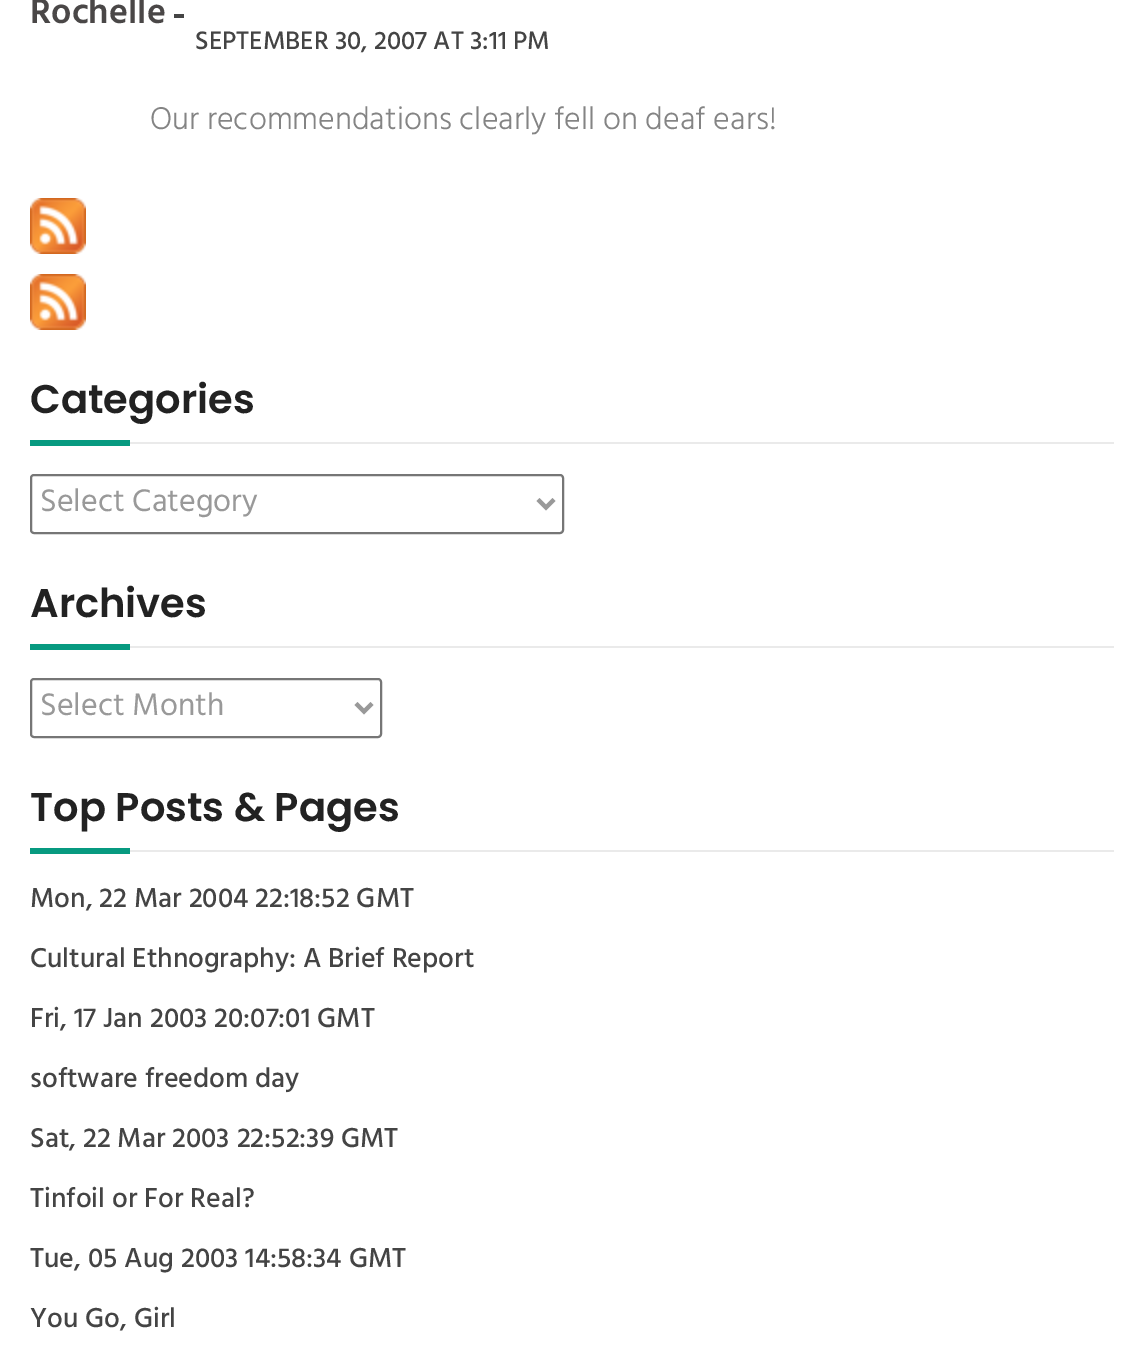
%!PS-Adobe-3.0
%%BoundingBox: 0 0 1144 1354
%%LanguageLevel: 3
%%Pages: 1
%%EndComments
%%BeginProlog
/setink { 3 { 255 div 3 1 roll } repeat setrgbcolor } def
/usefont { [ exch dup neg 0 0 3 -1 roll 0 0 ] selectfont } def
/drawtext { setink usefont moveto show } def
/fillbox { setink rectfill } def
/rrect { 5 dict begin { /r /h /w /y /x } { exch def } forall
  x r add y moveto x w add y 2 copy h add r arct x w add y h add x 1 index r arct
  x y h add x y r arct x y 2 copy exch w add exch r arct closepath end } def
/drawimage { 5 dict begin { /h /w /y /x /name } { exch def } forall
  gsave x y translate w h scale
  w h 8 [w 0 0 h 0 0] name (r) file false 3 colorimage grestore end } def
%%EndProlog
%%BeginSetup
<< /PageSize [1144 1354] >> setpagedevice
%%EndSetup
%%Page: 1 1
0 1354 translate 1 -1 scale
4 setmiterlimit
0 0 1144 1354 255 255 255 fillbox
(Rochelle) 30 23 /Hind-SemiBold 36 74 71 71 drawtext
174 14 10 4 69 69 69 fillbox
(SEPTEMBER 30, 2007 AT 3:11 PM) 195 49 /Hind-Medium 26 68 68 68 drawtext
(Our recommendations clearly fell on deaf ears!) 150 129 /Hind-Light 32 132 132 132 drawtext
(assets/img1.rgb) 30 198 56 56 drawimage
(assets/img1.rgb) 30 274 56 56 drawimage
130 442 984 2 234 234 234 fillbox
(Categories) 30 413 /Poppins-SemiBold 40 34 34 34 drawtext
30 440 100 6 7 154 128 fillbox
118 118 118 setink
2 setlinewidth
31 475 532 58 3 rrect stroke
153 153 153 setink
4 setlinewidth
538 499.5 moveto 546 507.5 lineto 554 499.5 lineto stroke
(Select Category) 40 511 /Hind-Regular 32 153 153 153 drawtext
130 646 984 2 234 234 234 fillbox
(Archives) 30 617 /Poppins-SemiBold 40 34 34 34 drawtext
30 644 100 6 7 154 128 fillbox
118 118 118 setink
2 setlinewidth
31 679 350 58 3 rrect stroke
153 153 153 setink
4 setlinewidth
356 703.5 moveto 364 711.5 lineto 372 703.5 lineto stroke
(Select Month) 40 715 /Hind-Regular 32 153 153 153 drawtext
130 850 984 2 234 234 234 fillbox
(Top Posts & Pages) 30 821 /Poppins-SemiBold 40 34 34 34 drawtext
30 848 100 6 7 154 128 fillbox
(Mon, 22 Mar 2004 22:18:52 GMT) 30 907 /Hind-Medium 28 68 68 68 drawtext
(Cultural Ethnography: A Brief Report) 30 967 /Hind-Medium 28 68 68 68 drawtext
(Fri, 17 Jan 2003 20:07:01 GMT) 30 1027 /Hind-Medium 28 68 68 68 drawtext
(software freedom day) 30 1087 /Hind-Medium 28 68 68 68 drawtext
(Sat, 22 Mar 2003 22:52:39 GMT) 30 1147 /Hind-Medium 28 68 68 68 drawtext
(Tinfoil or For Real?) 30 1207 /Hind-Medium 28 68 68 68 drawtext
(Tue, 05 Aug 2003 14:58:34 GMT) 30 1267 /Hind-Medium 28 68 68 68 drawtext
(You Go, Girl) 30 1327 /Hind-Medium 28 68 68 68 drawtext
showpage
%%EOF
